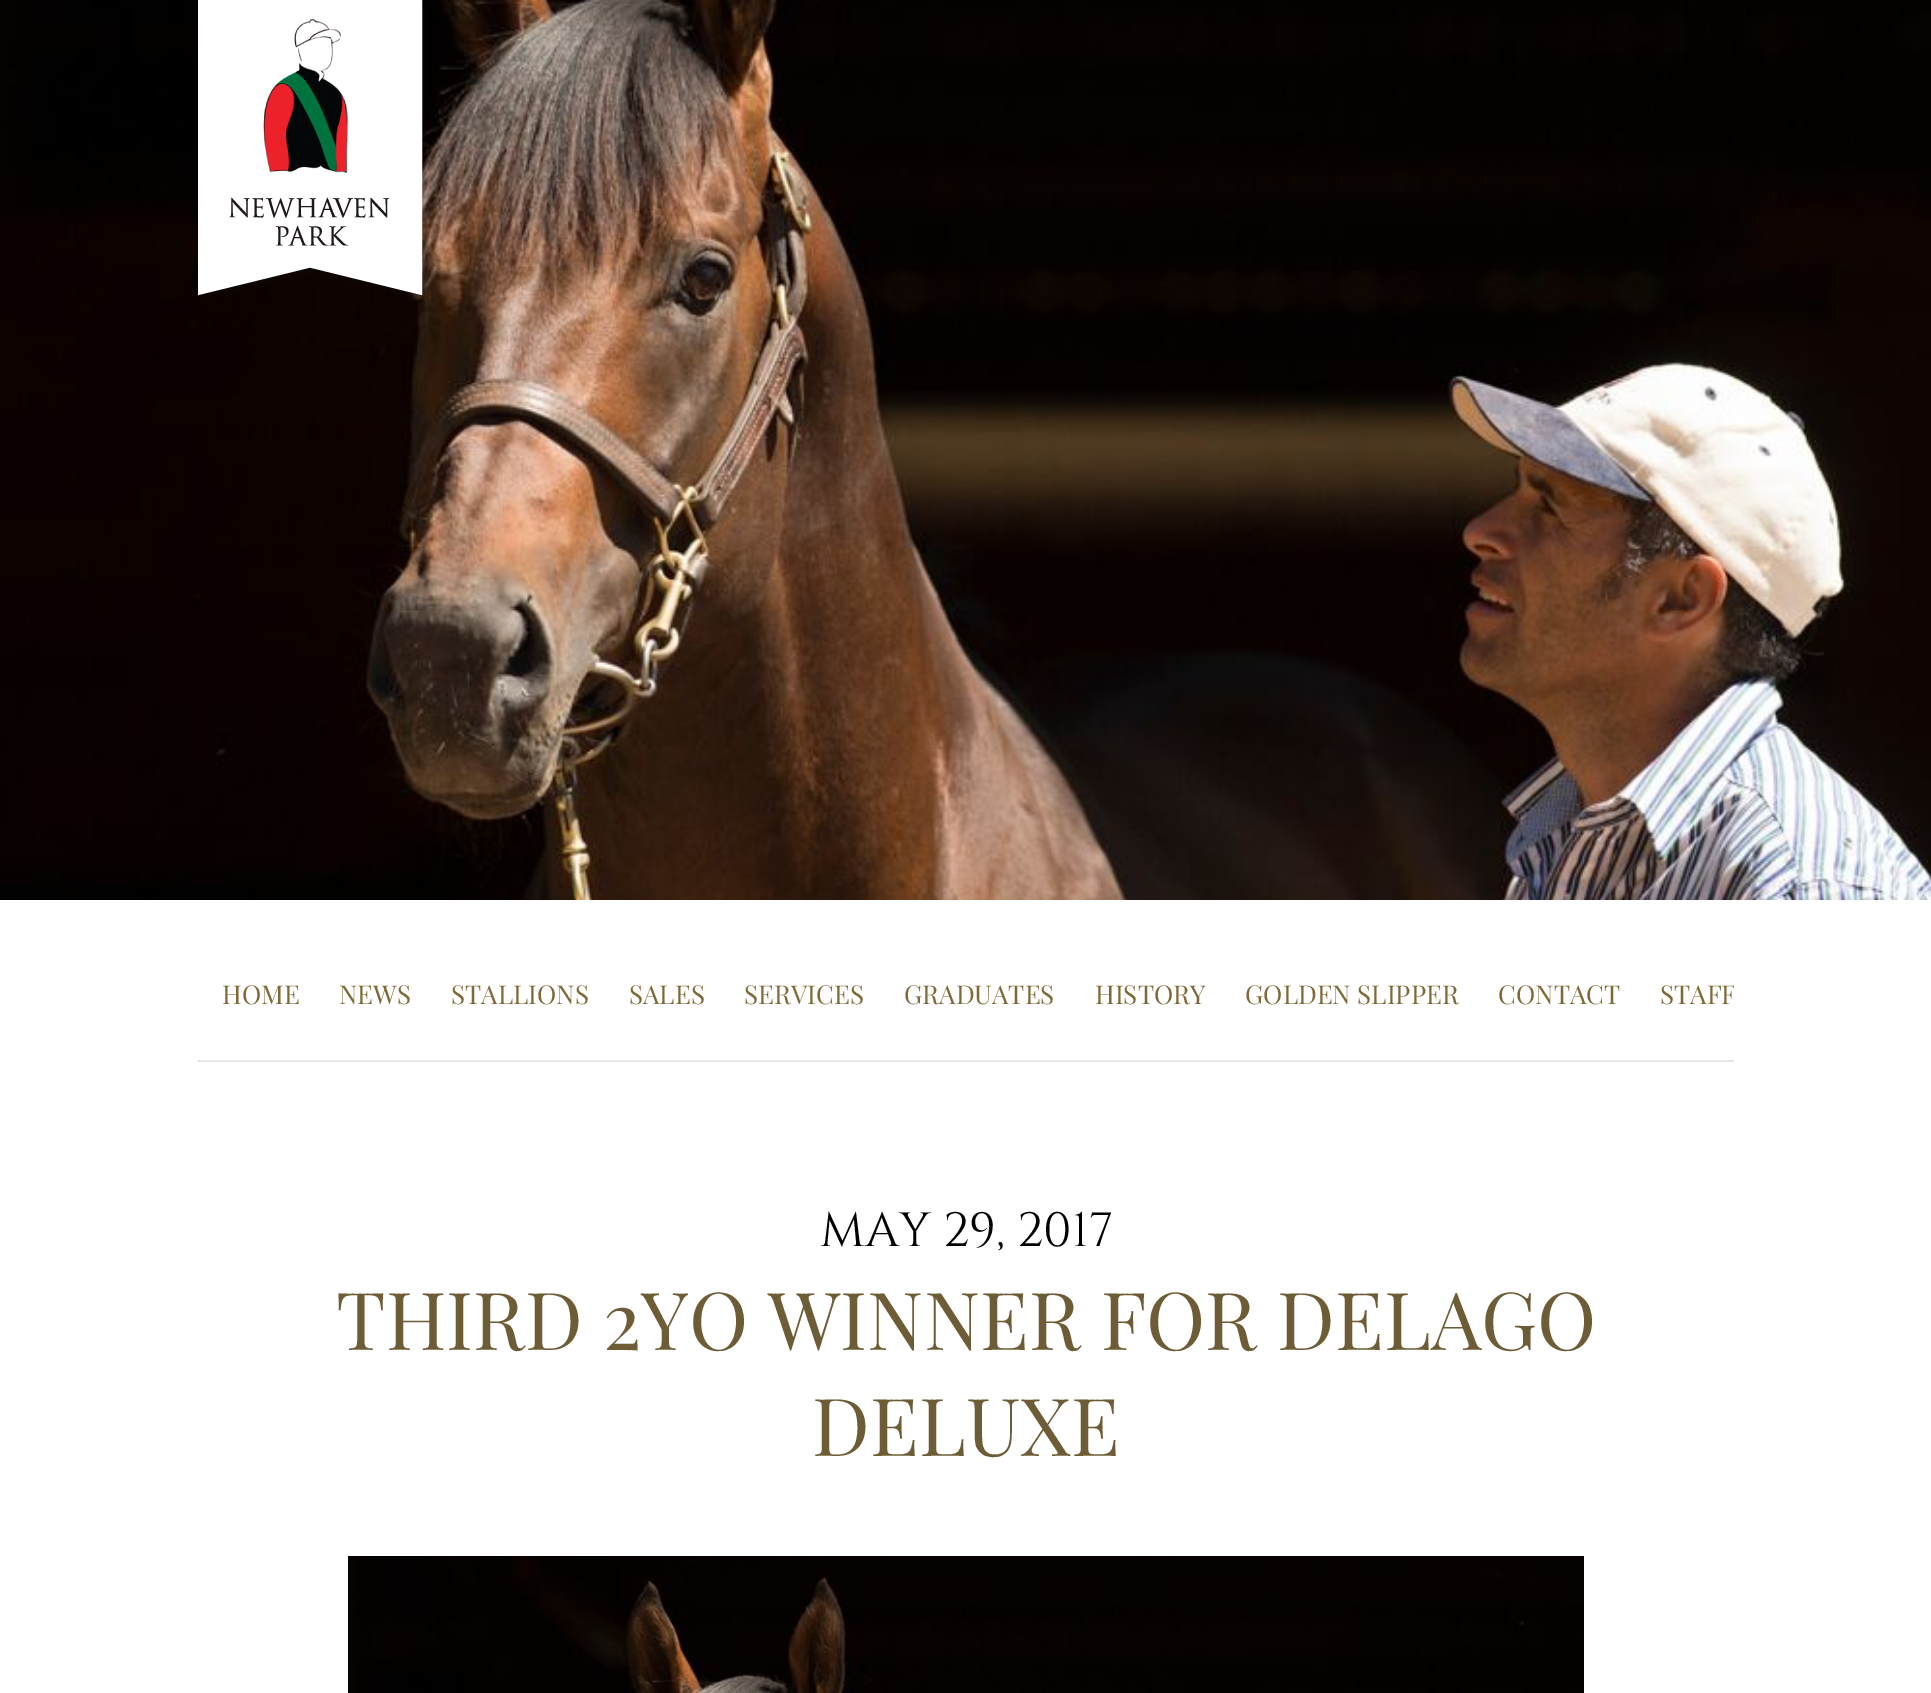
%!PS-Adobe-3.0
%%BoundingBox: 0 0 1931 1693
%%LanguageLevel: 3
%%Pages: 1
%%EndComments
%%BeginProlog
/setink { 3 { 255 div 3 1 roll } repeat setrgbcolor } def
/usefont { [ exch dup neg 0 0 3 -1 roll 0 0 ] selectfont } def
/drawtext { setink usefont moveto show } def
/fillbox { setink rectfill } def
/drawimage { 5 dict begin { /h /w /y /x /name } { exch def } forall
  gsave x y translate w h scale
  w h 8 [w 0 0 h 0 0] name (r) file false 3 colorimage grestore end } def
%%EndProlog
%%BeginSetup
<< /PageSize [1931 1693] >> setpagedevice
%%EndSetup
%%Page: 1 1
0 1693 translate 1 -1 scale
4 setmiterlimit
0 0 1931 1693 255 255 255 fillbox
(assets/img1.rgb) 0 0 1931 900 drawimage
(assets/img2.rgb) 198 0 228 297 drawimage
198 1060 1536 2 229 229 229 fillbox
(HOME) 222 1004 /PlayfairDisplay-Regular 26 127 105 54 drawtext
(NEWS) 339 1004 /PlayfairDisplay-Regular 26 127 105 54 drawtext
(STALLIONS) 451 1004 /PlayfairDisplay-Regular 26 127 105 54 drawtext
(SALES) 629 1004 /PlayfairDisplay-Regular 26 127 105 54 drawtext
(SERVICES) 744 1004 /PlayfairDisplay-Regular 26 127 105 54 drawtext
(GRADUATES) 904 1004 /PlayfairDisplay-Regular 26 127 105 54 drawtext
(HISTORY) 1095 1004 /PlayfairDisplay-Regular 26 127 105 54 drawtext
(GOLDEN SLIPPER) 1245 1004 /PlayfairDisplay-Regular 26 127 105 54 drawtext
(CONTACT) 1498 1004 /PlayfairDisplay-Regular 26 127 105 54 drawtext
gsave
198 900 1536 160 rectclip
(STAFF) 1660 1004 /PlayfairDisplay-Regular 26 127 105 54 drawtext
grestore
(MAY 29, 2017) 820 1246 /Cinzel-Regular 48 0 0 0 drawtext
(THIRD 2YO WINNER FOR DELAGO) 336 1350 /PlayfairDisplay-Regular 80 109 92 53 drawtext
(DELUXE) 812 1456 /PlayfairDisplay-Regular 80 109 92 53 drawtext
(assets/img3.rgb) 348 1556 1236 137 drawimage
showpage
%%EOF
